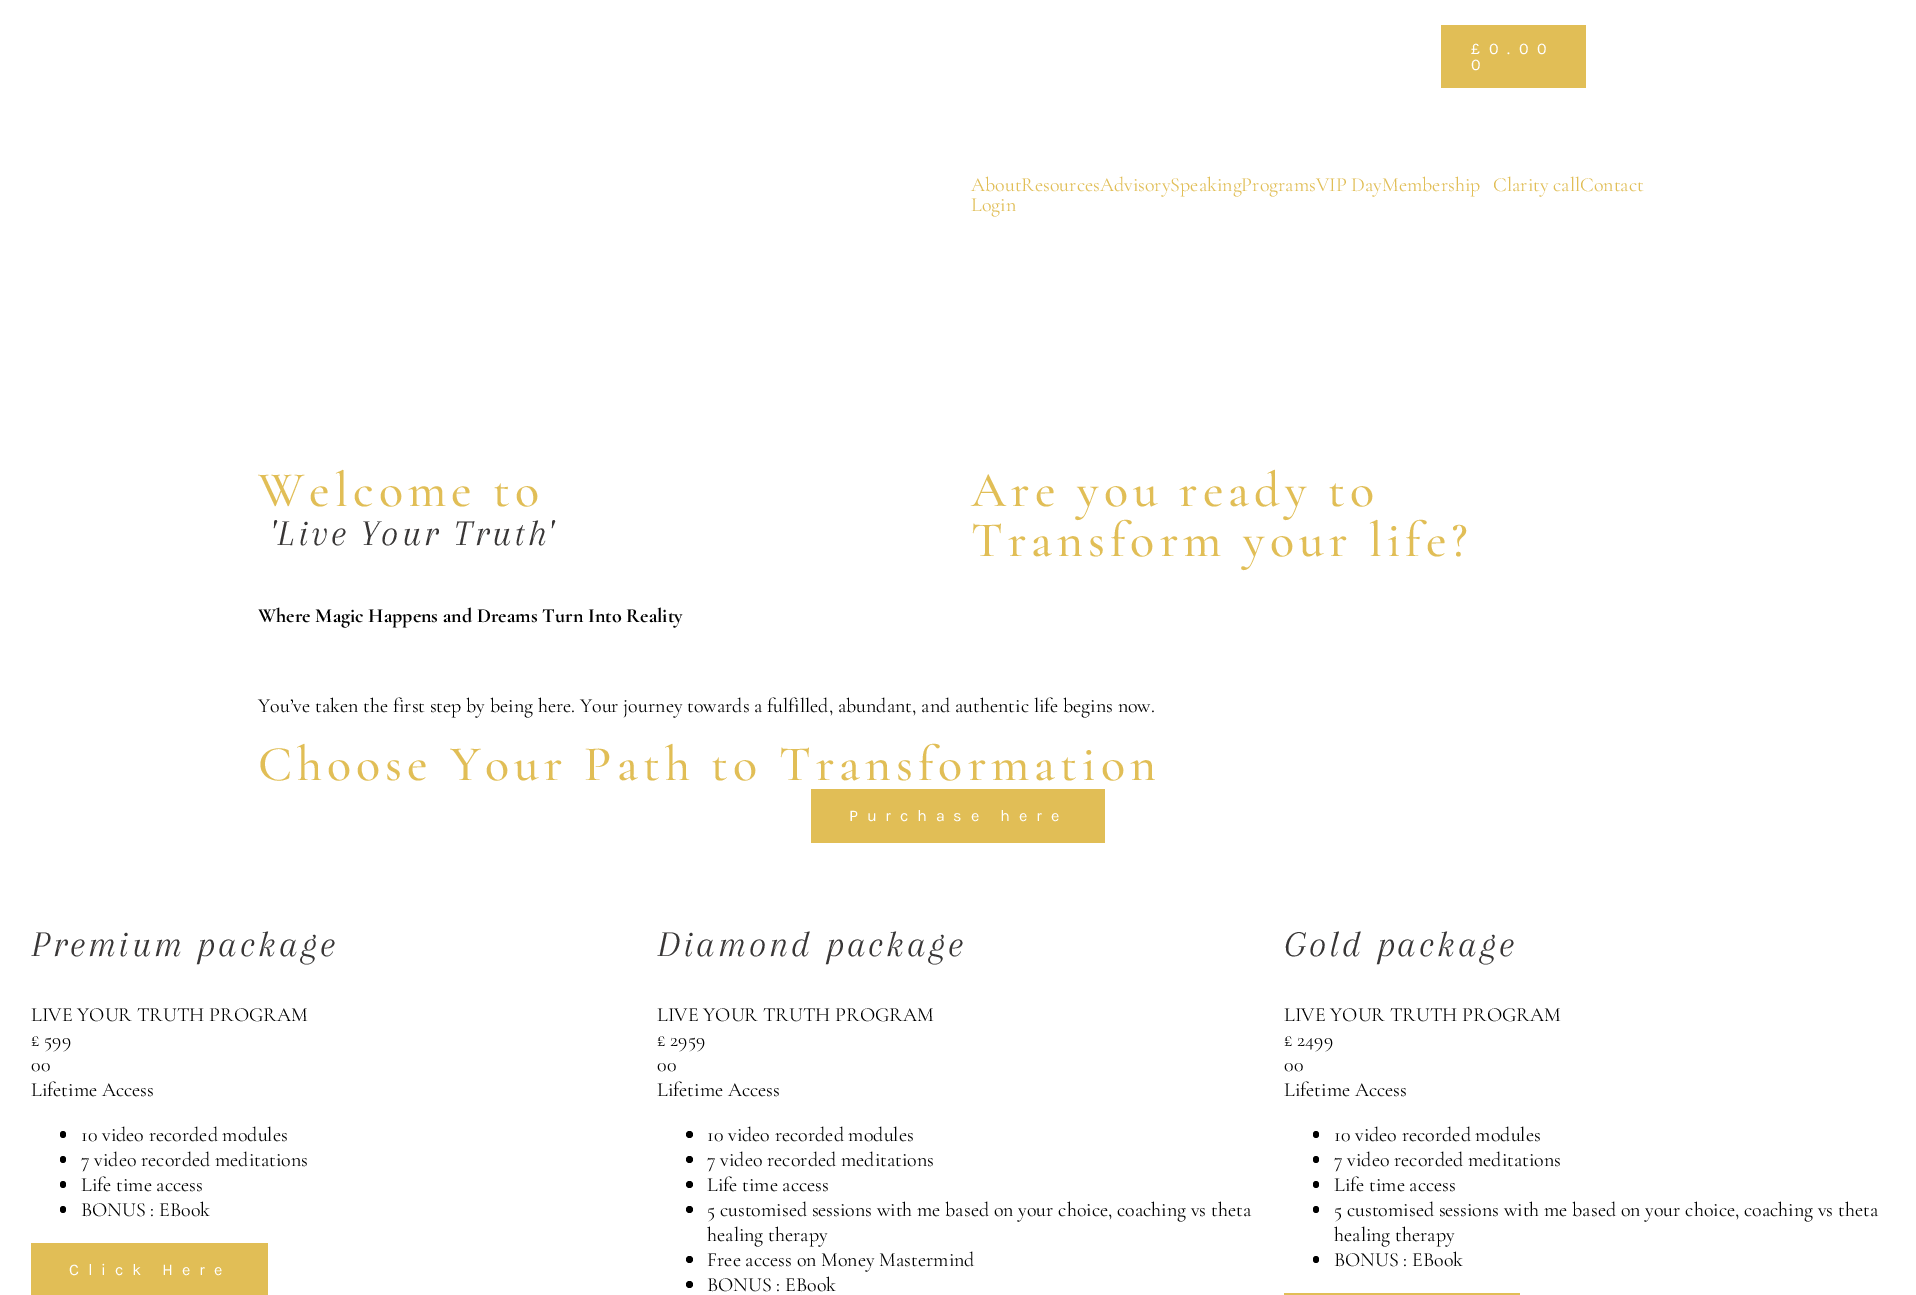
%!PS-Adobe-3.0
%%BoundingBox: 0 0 1916 1295
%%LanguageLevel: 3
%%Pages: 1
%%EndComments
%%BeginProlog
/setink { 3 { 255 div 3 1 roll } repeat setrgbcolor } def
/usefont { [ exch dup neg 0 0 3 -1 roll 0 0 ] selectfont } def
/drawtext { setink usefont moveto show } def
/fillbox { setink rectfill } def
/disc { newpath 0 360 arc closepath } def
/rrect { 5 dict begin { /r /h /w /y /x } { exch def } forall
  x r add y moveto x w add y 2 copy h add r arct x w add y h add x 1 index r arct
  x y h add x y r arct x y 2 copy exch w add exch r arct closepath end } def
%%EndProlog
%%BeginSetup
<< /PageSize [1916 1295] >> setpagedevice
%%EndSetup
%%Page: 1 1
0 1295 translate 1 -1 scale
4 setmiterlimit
0 0 1916 1295 255 255 255 fillbox
1441 25 145 63 225 190 86 fillbox
/Karla-Regular 16.25 usefont
255 255 255 setink
1471 54 moveto 8.75 0 (£0.00) ashow
1471 70 moveto 8.75 0 (0) ashow
(AboutResourcesAdvisorySpeakingProgramsVIP DayMembership) 971 191 /CormorantGaramond-Regular 20 225 190 86 drawtext
(Clarity callContact) 1493 191 /CormorantGaramond-Regular 20 225 190 86 drawtext
(Login) 971 211 /CormorantGaramond-Regular 20 225 190 86 drawtext
/CormorantGaramond-Medium 50 usefont
258 506 moveto 5 0 (Welcome to) ashow
/Arapey-Italic 37.5 usefont
56 54 54 setink
271 545 moveto 3.1 0 ('Live Your Truth') ashow
(Where Magic Happens and Dreams Turn Into Reality) 258 622 /CormorantGaramond-Bold 20 0 0 0 drawtext
/CormorantGaramond-Medium 50 usefont
225 190 86 setink
971 506 moveto 5 0 (Are you ready to) ashow
971 556 moveto 5 0 (Transform your life?) ashow
(You’ve taken the first step by being here. Your journey towards a fulfilled, abundant, and authentic life begins now.) 258 712 /CormorantGaramond-Regular 20 0 0 0 drawtext
/CormorantGaramond-Medium 50 usefont
225 190 86 setink
258 780 moveto 5 0 (Choose Your Path to Transformation) ashow
811 789 294 54 225 190 86 fillbox
/Karla-Regular 16.25 usefont
255 255 255 setink
849 821 moveto 8.75 0 (Purchase here) ashow
/Arapey-Italic 37.5 usefont
56 54 54 setink
31 956 moveto 3.1 0 (Premium package) ashow
(LIVE YOUR TRUTH PROGRAM) 31 1021 /CormorantGaramond-Regular 20 0 0 0 drawtext
(₤ 599) 31 1046 /CormorantGaramond-Regular 20 0 0 0 drawtext
(00) 31 1071 /CormorantGaramond-Regular 20 0 0 0 drawtext
(Lifetime Access) 31 1096 /CormorantGaramond-Regular 20 0 0 0 drawtext
60 1131 6 7 3 rrect fill
(10 video recorded modules) 81 1141 /CormorantGaramond-Regular 20 0 0 0 drawtext
60 1156 6 7 3 rrect fill
(7 video recorded meditations) 81 1166 /CormorantGaramond-Regular 20 0 0 0 drawtext
60 1181 6 7 3 rrect fill
(Life time access) 81 1191 /CormorantGaramond-Regular 20 0 0 0 drawtext
60 1206 6 7 3 rrect fill
(BONUS : EBook) 81 1216 /CormorantGaramond-Regular 20 0 0 0 drawtext
31 1243 237 52 225 190 86 fillbox
/Karla-Regular 16.25 usefont
255 255 255 setink
69 1275 moveto 8.75 0 (Click Here) ashow
/Arapey-Italic 37.5 usefont
56 54 54 setink
657 956 moveto 3.1 0 (Diamond package) ashow
(LIVE YOUR TRUTH PROGRAM) 657 1021 /CormorantGaramond-Regular 20 0 0 0 drawtext
(₤ 2959) 657 1046 /CormorantGaramond-Regular 20 0 0 0 drawtext
(00) 657 1071 /CormorantGaramond-Regular 20 0 0 0 drawtext
(Lifetime Access) 657 1096 /CormorantGaramond-Regular 20 0 0 0 drawtext
689.5 1134.5 3.5 disc fill
(10 video recorded modules) 707 1141 /CormorantGaramond-Regular 20 0 0 0 drawtext
689.5 1159.5 3.5 disc fill
(7 video recorded meditations) 707 1166 /CormorantGaramond-Regular 20 0 0 0 drawtext
689.5 1184.5 3.5 disc fill
(Life time access) 707 1191 /CormorantGaramond-Regular 20 0 0 0 drawtext
689.5 1209.5 3.5 disc fill
(5 customised sessions with me based on your choice, coaching vs theta) 707 1216 /CormorantGaramond-Regular 20 0 0 0 drawtext
(healing therapy) 707 1241 /CormorantGaramond-Regular 20 0 0 0 drawtext
689.5 1259.5 3.5 disc fill
(Free access on Money Mastermind) 707 1266 /CormorantGaramond-Regular 20 0 0 0 drawtext
689.5 1284.5 3.5 disc fill
(BONUS : EBook) 707 1291 /CormorantGaramond-Regular 20 0 0 0 drawtext
/Arapey-Italic 37.5 usefont
56 54 54 setink
1284 956 moveto 3.1 0 (Gold package) ashow
(LIVE YOUR TRUTH PROGRAM) 1284 1021 /CormorantGaramond-Regular 20 0 0 0 drawtext
(₤ 2499) 1284 1046 /CormorantGaramond-Regular 20 0 0 0 drawtext
(00) 1284 1071 /CormorantGaramond-Regular 20 0 0 0 drawtext
(Lifetime Access) 1284 1096 /CormorantGaramond-Regular 20 0 0 0 drawtext
1313 1131 6 7 3 rrect fill
(10 video recorded modules) 1334 1141 /CormorantGaramond-Regular 20 0 0 0 drawtext
1313 1156 6 7 3 rrect fill
(7 video recorded meditations) 1334 1166 /CormorantGaramond-Regular 20 0 0 0 drawtext
1313 1181 6 7 3 rrect fill
(Life time access) 1334 1191 /CormorantGaramond-Regular 20 0 0 0 drawtext
1313 1206 6 7 3 rrect fill
(5 customised sessions with me based on your choice, coaching vs theta) 1334 1216 /CormorantGaramond-Regular 20 0 0 0 drawtext
(healing therapy) 1334 1241 /CormorantGaramond-Regular 20 0 0 0 drawtext
1313 1256 6 7 3 rrect fill
(BONUS : EBook) 1334 1266 /CormorantGaramond-Regular 20 0 0 0 drawtext
1284 1293 236 2 225 190 86 fillbox
showpage
%%EOF
